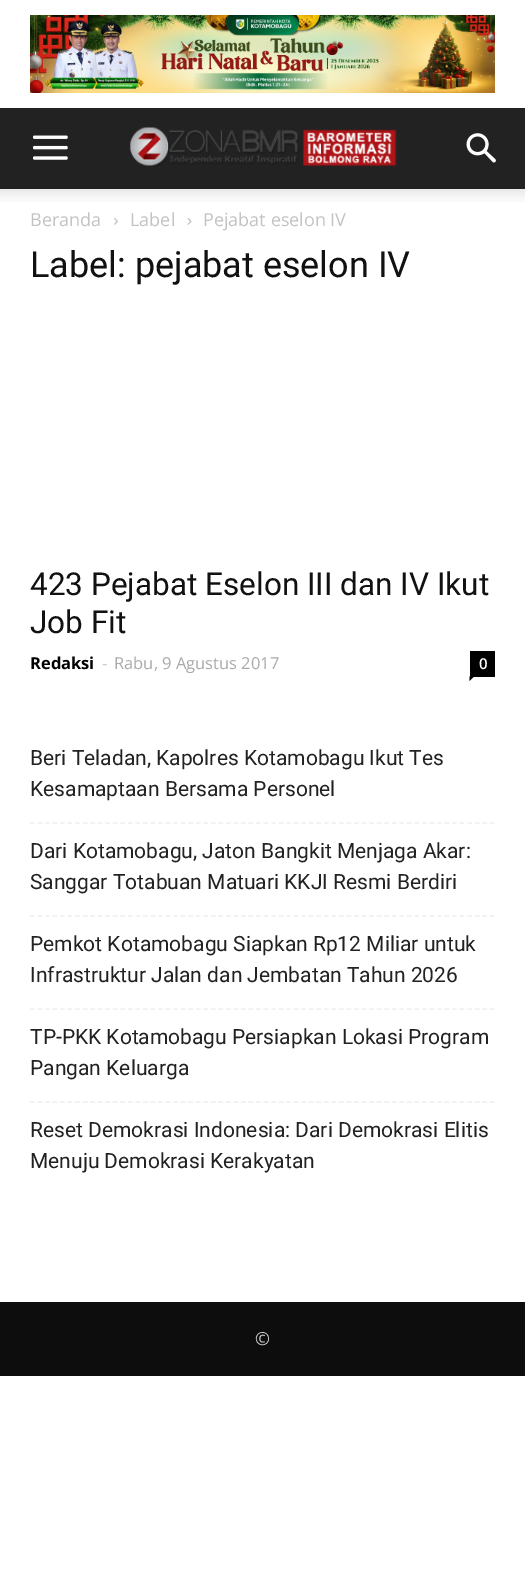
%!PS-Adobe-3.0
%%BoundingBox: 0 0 525 1592
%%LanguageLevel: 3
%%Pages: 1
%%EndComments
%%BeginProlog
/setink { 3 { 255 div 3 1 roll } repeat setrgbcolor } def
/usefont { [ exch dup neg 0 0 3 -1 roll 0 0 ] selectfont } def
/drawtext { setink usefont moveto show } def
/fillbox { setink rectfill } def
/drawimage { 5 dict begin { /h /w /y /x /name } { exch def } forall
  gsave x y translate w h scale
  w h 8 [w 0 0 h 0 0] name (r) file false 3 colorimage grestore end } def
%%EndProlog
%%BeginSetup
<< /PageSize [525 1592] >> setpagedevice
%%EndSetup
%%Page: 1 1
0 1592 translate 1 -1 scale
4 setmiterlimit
0 0 525 1592 255 255 255 fillbox
(assets/img1.rgb) 30 15 465 78 drawimage
0 108 525 81 34 34 34 fillbox
(assets/img2.rgb) 33 135 35 25 drawimage
(assets/img3.rgb) 129 127 268 40 drawimage
(assets/img4.rgb) 466 133 30 30 drawimage
(assets/img5.rgb) 0 189 525 13 drawimage
(Beranda) 30 226 /OpenSans-Regular 18 195 195 195 drawtext
(assets/img6.rgb) 114 218 4 7 drawimage
(Label) 130 226 /OpenSans-Regular 18 195 195 195 drawtext
(assets/img7.rgb) 187 218 5 7 drawimage
(Pejabat eselon IV) 203 226 /OpenSans-Regular 18 195 195 195 drawtext
(Label: pejabat eselon IV) 30 277 /Roboto-Regular 36 17 17 17 drawtext
(423 Pejabat Eselon III dan IV Ikut) 30 595 /Roboto-Regular 31.5 17 17 17 drawtext
(Job Fit) 30 633 /Roboto-Regular 31.5 17 17 17 drawtext
(Redaksi) 30 669 /OpenSans-Bold 16.5 0 0 0 drawtext
(-) 102 669 /OpenSans-Regular 16.5 204 204 204 drawtext
(Rabu, 9 Agustus 2017) 114 669 /OpenSans-Regular 16.5 170 170 170 drawtext
470 651 25 26 0 0 0 fillbox
(0) 479 669 /OpenSans-SemiBold 15 255 255 255 drawtext
0 0 0 setink
469.5 676.5 moveto 474 676.5 lineto 469.5 681 lineto closepath fill
241 241 241 setink
1.5 setlinewidth
[4.5 3.04] 0 setdash
30 823 moveto 495 823 lineto stroke
(Beri Teladan, Kapolres Kotamobagu Ikut Tes) 30 765 /Roboto-Regular 21 34 34 34 drawtext
(Kesamaptaan Bersama Personel) 30 796 /Roboto-Regular 21 34 34 34 drawtext
241 241 241 setink
30 916 moveto 495 916 lineto stroke
(Dari Kotamobagu, Jaton Bangkit Menjaga Akar:) 30 858 /Roboto-Regular 21 34 34 34 drawtext
(Sanggar Totabuan Matuari KKJI Resmi Berdiri) 30 889 /Roboto-Regular 21 34 34 34 drawtext
241 241 241 setink
30 1009 moveto 495 1009 lineto stroke
(Pemkot Kotamobagu Siapkan Rp12 Miliar untuk) 30 951 /Roboto-Regular 21 34 34 34 drawtext
(Infrastruktur Jalan dan Jembatan Tahun 2026) 30 982 /Roboto-Regular 21 34 34 34 drawtext
241 241 241 setink
30 1102 moveto 495 1102 lineto stroke
(TP-PKK Kotamobagu Persiapkan Lokasi Program) 30 1044 /Roboto-Regular 21 34 34 34 drawtext
(Pangan Keluarga) 30 1075 /Roboto-Regular 21 34 34 34 drawtext
(Reset Demokrasi Indonesia: Dari Demokrasi Elitis) 30 1137 /Roboto-Regular 21 34 34 34 drawtext
(Menuju Demokrasi Kerakyatan) 30 1168 /Roboto-Regular 21 34 34 34 drawtext
0 1302 525 74 13 13 13 fillbox
(©) 255 1345 /OpenSans-Regular 18 204 204 204 drawtext
showpage
%%EOF
